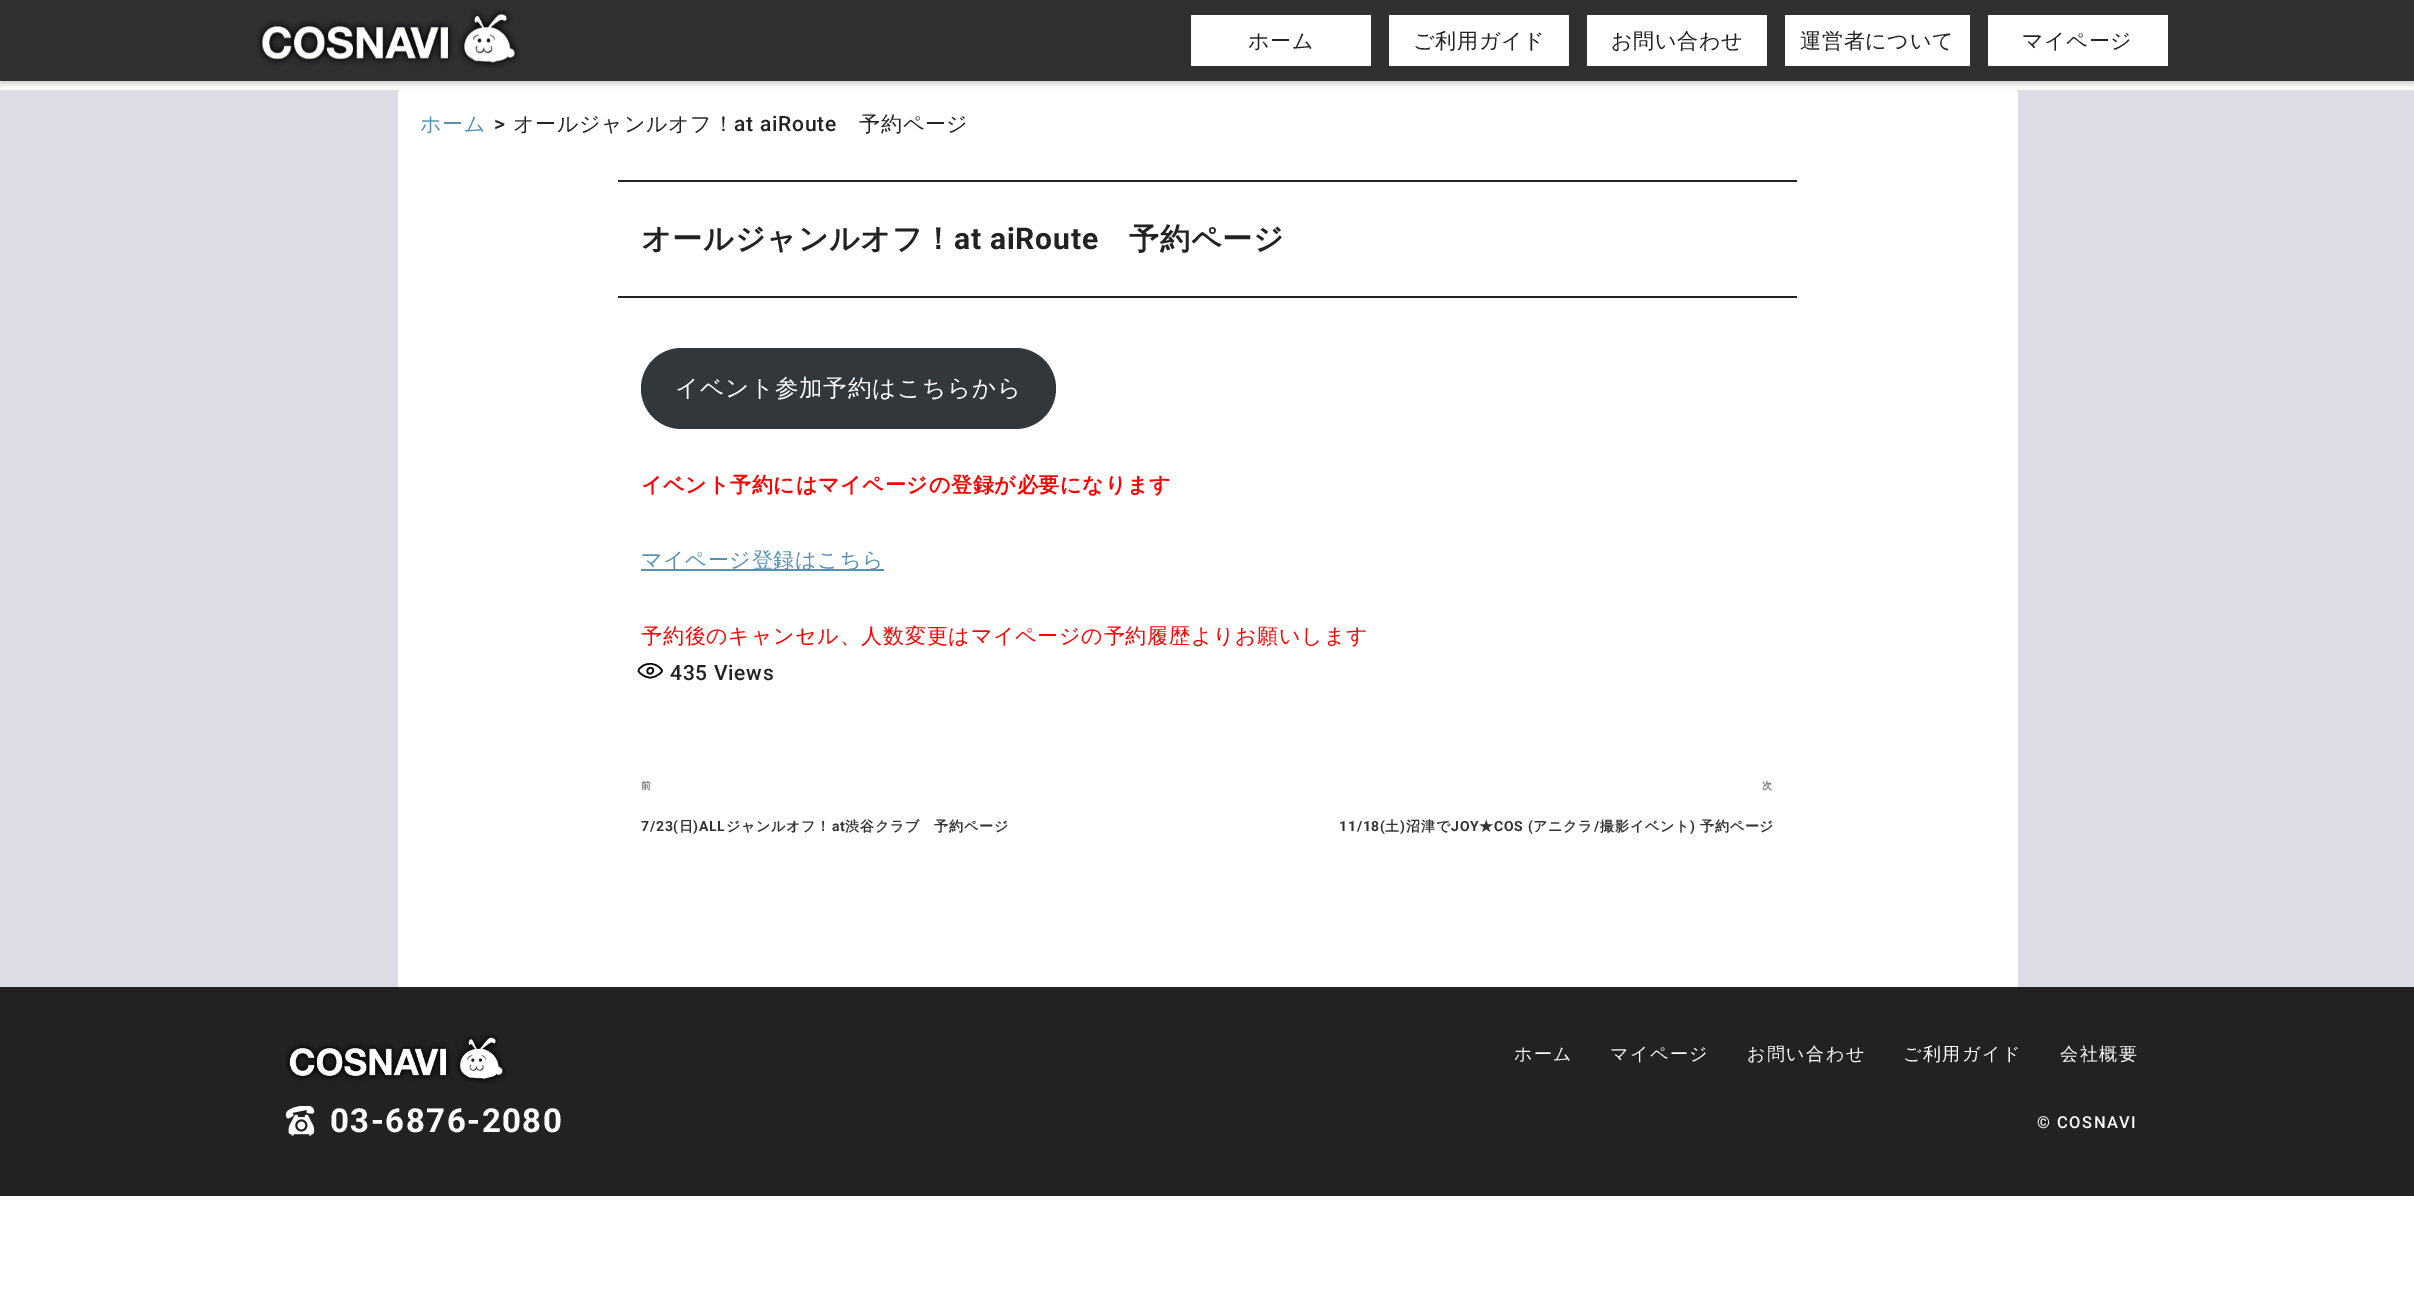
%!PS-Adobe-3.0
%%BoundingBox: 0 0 2414 1313
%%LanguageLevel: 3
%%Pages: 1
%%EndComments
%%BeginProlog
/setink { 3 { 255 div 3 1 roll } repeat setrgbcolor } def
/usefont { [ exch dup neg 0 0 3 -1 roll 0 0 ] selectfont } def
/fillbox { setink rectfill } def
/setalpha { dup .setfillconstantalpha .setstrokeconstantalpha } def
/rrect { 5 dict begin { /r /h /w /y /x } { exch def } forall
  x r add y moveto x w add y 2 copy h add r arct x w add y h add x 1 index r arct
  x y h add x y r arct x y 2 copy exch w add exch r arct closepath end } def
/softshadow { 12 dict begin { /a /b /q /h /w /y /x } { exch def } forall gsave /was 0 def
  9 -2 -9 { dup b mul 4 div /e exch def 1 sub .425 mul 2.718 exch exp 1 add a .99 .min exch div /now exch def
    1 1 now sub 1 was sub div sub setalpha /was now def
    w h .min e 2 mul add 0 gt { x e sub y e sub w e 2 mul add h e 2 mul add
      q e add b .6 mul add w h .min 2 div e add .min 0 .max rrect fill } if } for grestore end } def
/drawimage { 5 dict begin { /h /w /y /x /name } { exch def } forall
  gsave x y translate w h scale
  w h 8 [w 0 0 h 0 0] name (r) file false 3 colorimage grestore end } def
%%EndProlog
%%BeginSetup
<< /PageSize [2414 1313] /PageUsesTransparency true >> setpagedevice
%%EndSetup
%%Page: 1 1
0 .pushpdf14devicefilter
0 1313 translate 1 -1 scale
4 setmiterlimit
0 0 2414 1313 255 255 255 fillbox
0 90 2414 897 220 220 228 fillbox
398 90 1620 897 255 255 255 fillbox
0 0 0 setink
0 3 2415 81 0 3 0.2 softshadow
0 0 2414 81 49 47 50 fillbox
(assets/img1.rgb) 256 9 264 59 drawimage
1191 15 180 51 255 255 255 fillbox
/WenQuanYiZenHei-Medium 21 usefont
34 34 34 setink
1248 48 moveto 0.75 0 (ホーム) ashow
1389 15 180 51 255 255 255 fillbox
34 34 34 setink
1413 48 moveto 0.75 0 (ご利用ガイド) ashow
1587 15 180 51 255 255 255 fillbox
34 34 34 setink
1611 48 moveto 0.75 0 (お問い合わせ) ashow
1785 15 185 51 255 255 255 fillbox
34 34 34 setink
1800 48 moveto 0.75 0 (運営者について) ashow
1988 15 180 51 255 255 255 fillbox
34 34 34 setink
2022 48 moveto 0.75 0 (マイページ) ashow
86 145 179 setink
420 131 moveto 0.75 0 (ホーム) ashow
/Roboto-Medium 21 usefont
34 34 34 setink
494 131 moveto 0.75 0 (>) ashow
/WenQuanYiZenHei-Medium 21 usefont
513 131 moveto 0.75 0 (オールジャンルオフ！) ashow
/Roboto-Medium 21 usefont
734 131 moveto 0.75 0 (at aiRoute) ashow
/WenQuanYiZenHei-Medium 21 usefont
859 131 moveto 0.75 0 (予約ページ) ashow
618 180 1179 2 34 34 34 fillbox
618 296 1179 2 34 34 34 fillbox
/WenQuanYiZenHei-Bold 30 usefont
641 249 moveto 0.75 0 (オールジャンルオフ！) ashow
/Roboto-Bold 30 usefont
954 249 moveto 0.75 0 (at aiRoute) ashow
/WenQuanYiZenHei-Bold 30 usefont
1129 249 moveto 0.75 0 (予約ページ) ashow
50 55 60 setink
641 348 415 81 40.5 rrect fill
/WenQuanYiZenHei-Medium 23.6 usefont
255 255 255 setink
675 396 moveto 0.75 0 (イベント参加予約はこちらから) ashow
/WenQuanYiZenHei-Bold 21 usefont
255 0 0 setink
641 492 moveto 0.75 0 (イベント予約にはマイページの登録が必要になります) ashow
641 569 243 2 86 145 179 fillbox
/WenQuanYiZenHei-Medium 21 usefont
641 567 moveto 0.75 0 (マイページ登録はこちら) ashow
255 0 0 setink
641 643 moveto 0.75 0 (予約後のキャンセル、人数変更はマイページの予約履歴よりお願いします) ashow
0 0 0 setink
1.5 setlinewidth
660 668 moveto 662.5 670.5 663 671 660 673.5 curveto 657 676 654 677.5 650 677.5 curveto 646.5 677.5 643.5 676 640.5 673.5 curveto 638.5 672 637.5 670.5 639.5 668.5 curveto 642.5 666 lineto 648 662.5 655.5 663 660 668 curveto closepath 652.5 668.5 moveto 655 671.5 651 675.5 648 673 curveto 645.5 670 649.5 666 652.5 668.5 curveto closepath stroke
/Roboto-Medium 21 usefont
34 34 34 setink
670 680 moveto 0.75 0 (435 Views) ashow
/WenQuanYiZenHei-Bold 10 usefont
118 118 118 setink
641 789 moveto 2 0 (前) ashow
/Roboto-Bold 14 usefont
51 51 51 setink
641 831 moveto 0.75 0 (7/23\() ashow
/WenQuanYiZenHei-Bold 14 usefont
679 831 moveto 0.75 0 (日) ashow
/Roboto-Bold 14 usefont
693 831 moveto 0.75 0 (\)ALL) ashow
/WenQuanYiZenHei-Bold 14 usefont
726 831 moveto 0.75 0 (ジャンルオフ！) ashow
/Roboto-Bold 14 usefont
832 831 moveto 0.75 0 (at) ashow
/WenQuanYiZenHei-Bold 14 usefont
845 831 moveto 0.75 0 (渋谷クラブ　予約ページ) ashow
/WenQuanYiZenHei-Bold 10 usefont
118 118 118 setink
1762 789 moveto 2 0 (次) ashow
/Roboto-Bold 14 usefont
51 51 51 setink
1339 831 moveto 0.75 0 (11/18\() ashow
/WenQuanYiZenHei-Bold 14 usefont
1385 831 moveto 0.75 0 (土) ashow
/Roboto-Bold 14 usefont
1400 831 moveto 0.75 0 (\)) ashow
/WenQuanYiZenHei-Bold 14 usefont
1406 831 moveto 0.75 0 (沼津で) ashow
/Roboto-Bold 14 usefont
1451 831 moveto 0.75 0 (JOY) ashow
/WenQuanYiZenHei-Bold 14 usefont
1479 831 moveto 0.75 0 (★) ashow
/Roboto-Bold 14 usefont
1494 831 moveto 0.75 0 (COS \() ashow
/WenQuanYiZenHei-Bold 14 usefont
1533 831 moveto 0.75 0 (アニクラ) ashow
/Roboto-Bold 14 usefont
1594 831 moveto 0.75 0 (/) ashow
/WenQuanYiZenHei-Bold 14 usefont
1600 831 moveto 0.75 0 (撮影イベント) ashow
/Roboto-Bold 14 usefont
1690 831 moveto 0.75 0 (\)) ashow
/WenQuanYiZenHei-Bold 14 usefont
1700 831 moveto 0.75 0 (予約ページ) ashow
0 987 2414 209 34 34 34 fillbox
(assets/img2.rgb) 286 1034 220 49 drawimage
(assets/img3.rgb) 285 1106 30 30 drawimage
/Roboto-Bold 33 usefont
255 255 255 setink
330 1132 moveto 1.5 0 (03-6876-2080) ashow
/WenQuanYiZenHei-Medium 18 usefont
1514 1060 moveto 1.5 0 (ホーム) ashow
1610 1060 moveto 1.5 0 (マイページ) ashow
1747 1060 moveto 1.5 0 (お問い合わせ) ashow
1903 1060 moveto 1.5 0 (ご利用ガイド) ashow
2060 1060 moveto 1.5 0 (会社概要) ashow
/Roboto-Medium 16.5 usefont
2037 1128 moveto 1.5 0 (© COSNAVI) ashow
.poppdf14devicefilter showpage
%%EOF
